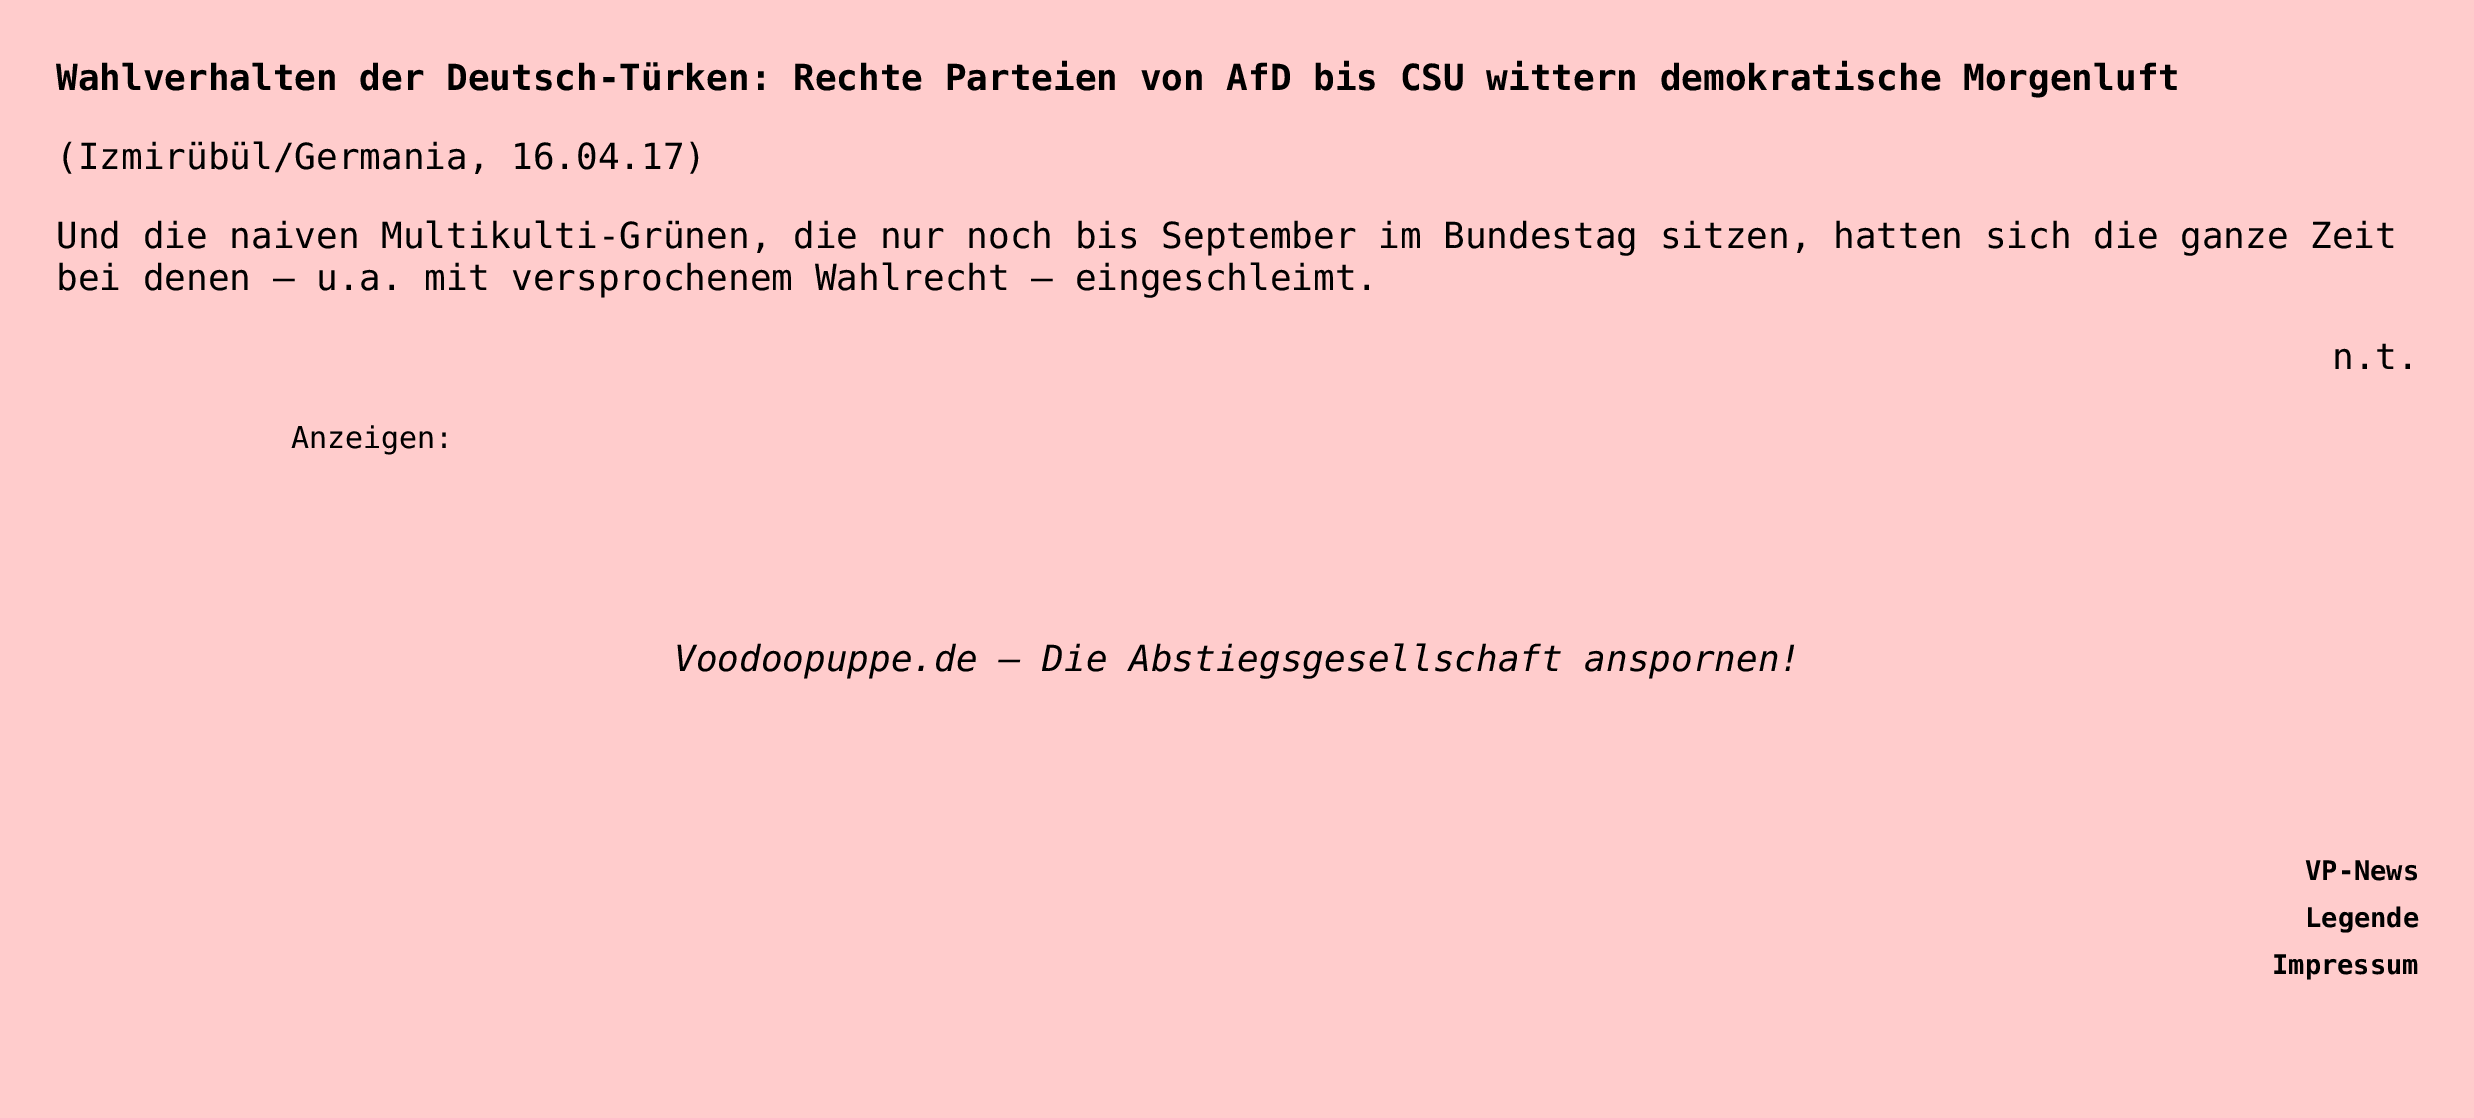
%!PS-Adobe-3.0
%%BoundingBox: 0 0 2474 1118
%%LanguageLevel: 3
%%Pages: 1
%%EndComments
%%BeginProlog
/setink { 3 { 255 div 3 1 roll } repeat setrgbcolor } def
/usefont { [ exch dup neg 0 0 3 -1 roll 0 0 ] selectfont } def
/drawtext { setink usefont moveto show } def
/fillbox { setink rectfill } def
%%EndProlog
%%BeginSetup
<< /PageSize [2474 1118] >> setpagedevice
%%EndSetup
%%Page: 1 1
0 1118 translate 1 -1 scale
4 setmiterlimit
0 0 2474 1118 255 204 204 fillbox
(Wahlverhalten der Deutsch-Türken: Rechte Parteien von AfD bis CSU wittern demokratische Morgenluft) 56 90 /DejaVuSansMono-Bold 36 0 0 0 drawtext
(\(Izmirübül/Germania, 16.04.17\)) 56 169 /DejaVuSansMono-Regular 36 0 0 0 drawtext
(Und die naiven Multikulti-Grünen, die nur noch bis September im Bundestag sitzen, hatten sich die ganze Zeit) 56 248 /DejaVuSansMono-Regular 36 0 0 0 drawtext
(bei denen – u.a. mit versprochenem Wahlrecht – eingeschleimt.) 56 290 /DejaVuSansMono-Regular 36 0 0 0 drawtext
(n.t.) 2332 369 /DejaVuSansMono-Regular 36 0 0 0 drawtext
(Anzeigen:) 291 448 /DejaVuSansMono-Regular 30 0 0 0 drawtext
(Voodoopuppe.de – Die Abstiegsgesellschaft anspornen!) 674 671 /DejaVuSansMono-Italic 36 0 0 0 drawtext
(VP-News) 2305 880 /DejaVuSansMono-Bold 27 0 0 0 drawtext
(Legende) 2305 927 /DejaVuSansMono-Bold 27 0 0 0 drawtext
(Impressum) 2272 974 /DejaVuSansMono-Bold 27 0 0 0 drawtext
showpage
%%EOF
